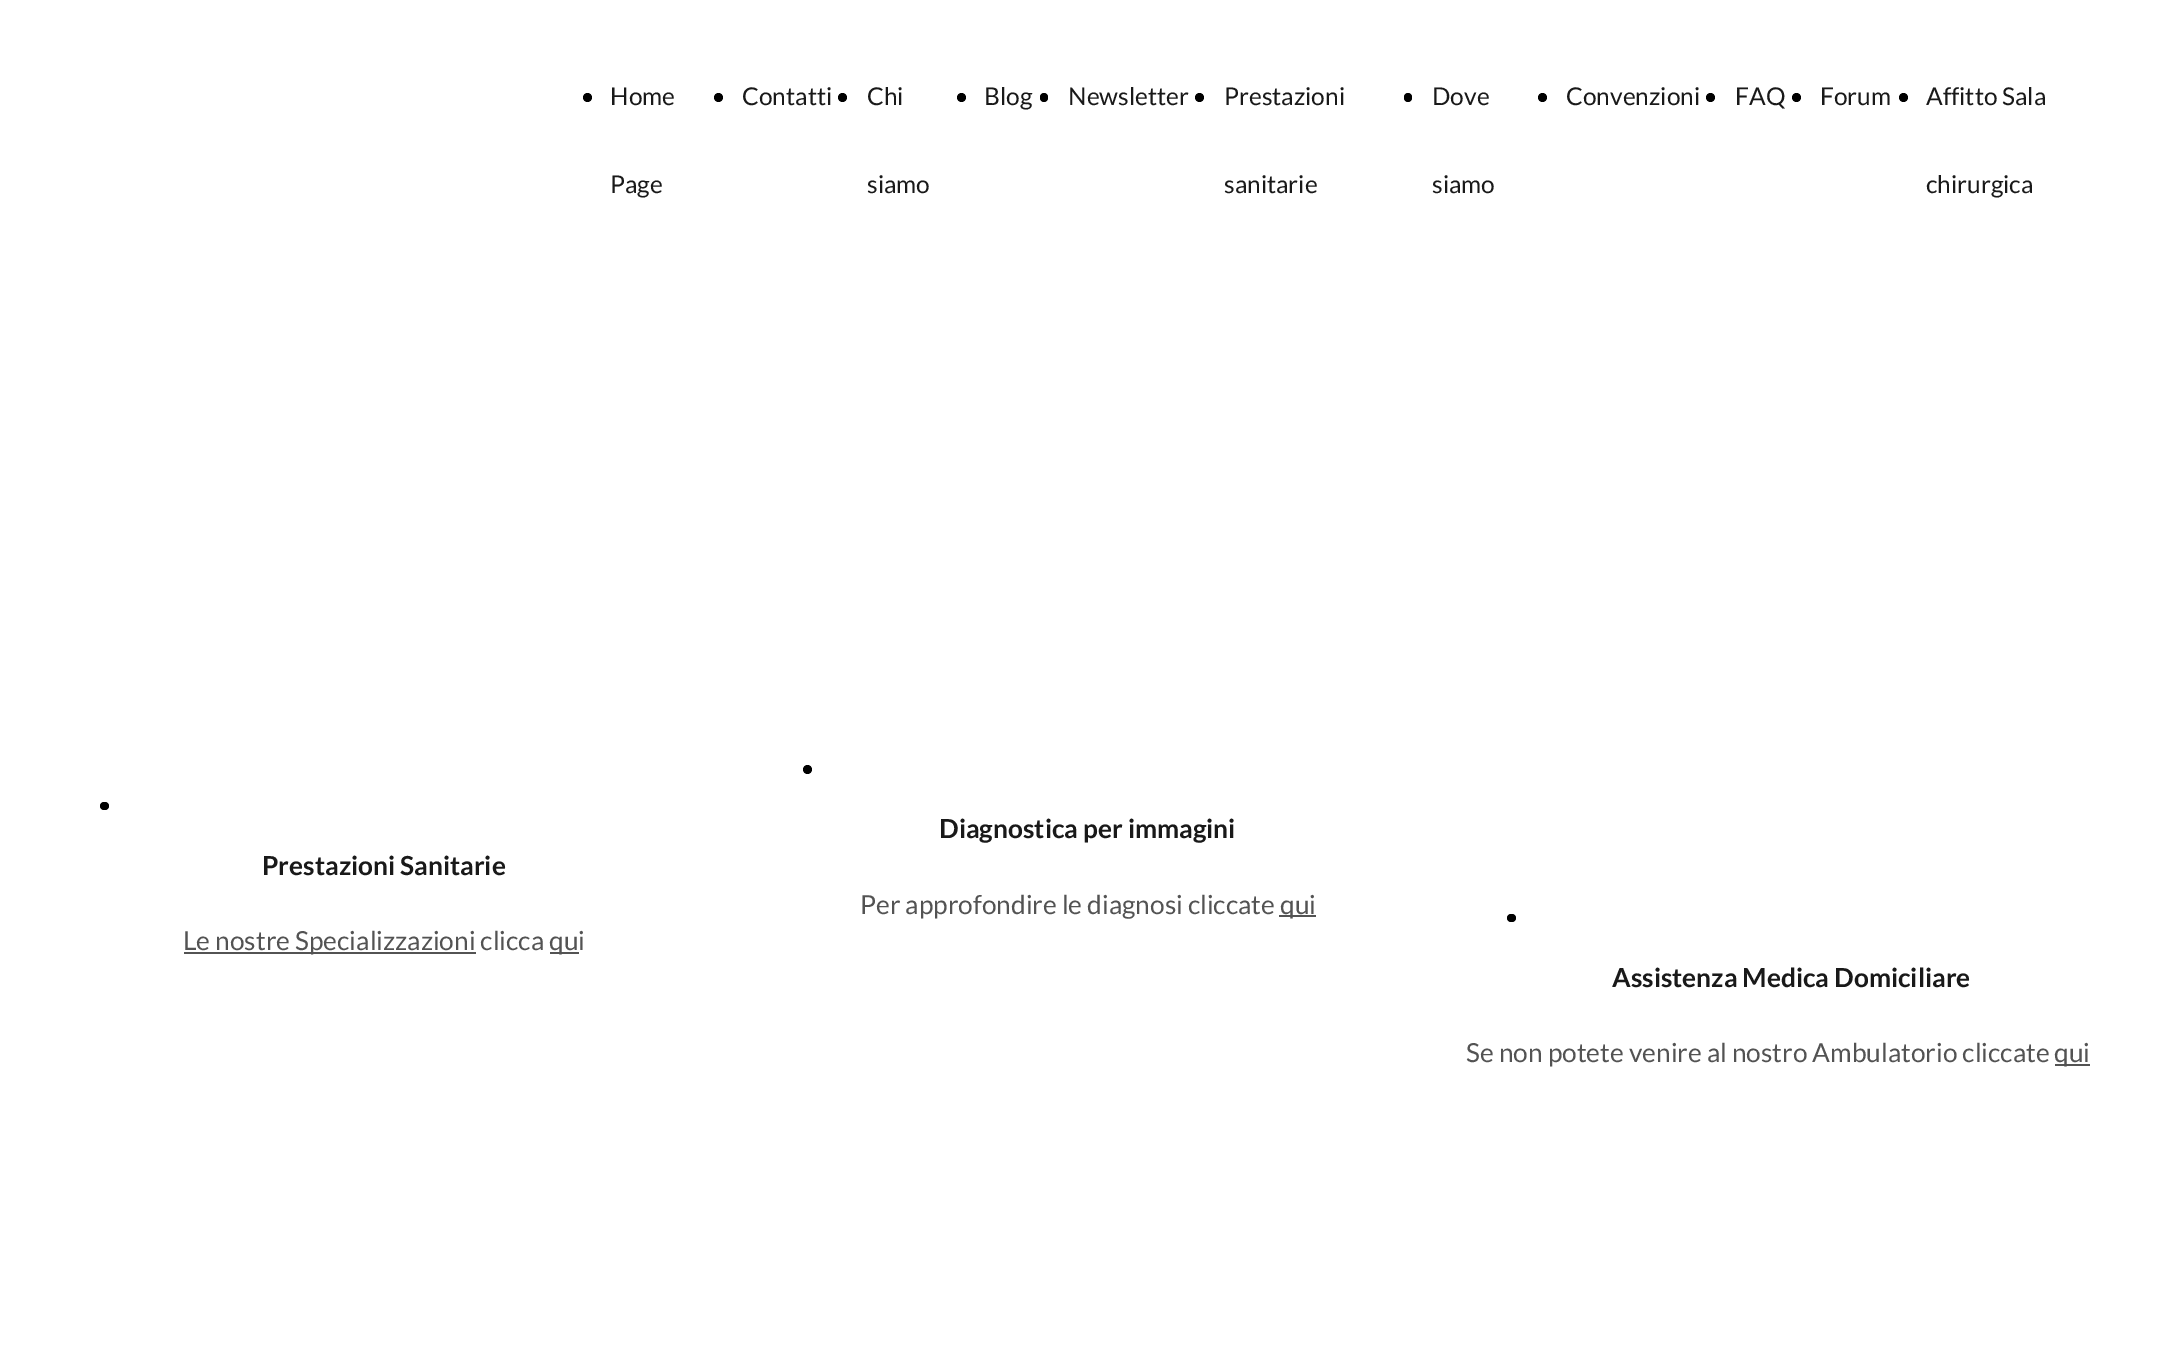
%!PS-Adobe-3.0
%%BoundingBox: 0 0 2175 1352
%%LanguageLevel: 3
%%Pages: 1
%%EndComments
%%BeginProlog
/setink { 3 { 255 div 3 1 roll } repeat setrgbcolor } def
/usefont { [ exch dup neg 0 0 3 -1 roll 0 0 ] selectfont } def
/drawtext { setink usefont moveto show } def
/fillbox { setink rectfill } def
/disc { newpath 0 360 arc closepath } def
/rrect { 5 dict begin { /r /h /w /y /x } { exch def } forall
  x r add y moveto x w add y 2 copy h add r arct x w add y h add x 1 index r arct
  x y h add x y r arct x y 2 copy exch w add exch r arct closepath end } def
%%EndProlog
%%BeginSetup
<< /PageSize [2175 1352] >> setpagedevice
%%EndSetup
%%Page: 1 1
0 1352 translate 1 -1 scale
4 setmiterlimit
0 0 2175 1352 255 255 255 fillbox
0 0 0 setink
587.5 97.5 4.5 disc fill
(Home) 610 105 /Lato-Regular 24.5 25 25 25 drawtext
(Page) 610 193 /Lato-Regular 24.5 25 25 25 drawtext
0 0 0 setink
718.5 97.5 4.5 disc fill
(Contatti) 742 105 /Lato-Regular 24.5 25 25 25 drawtext
0 0 0 setink
842.5 97.5 4.5 disc fill
(Chi) 867 105 /Lato-Regular 24.5 25 25 25 drawtext
(siamo) 867 193 /Lato-Regular 24.5 25 25 25 drawtext
0 0 0 setink
961.5 97.5 4.5 disc fill
(Blog) 984 105 /Lato-Regular 24.5 25 25 25 drawtext
0 0 0 setink
1040 93 8 9 4 rrect fill
(Newsletter) 1068 105 /Lato-Regular 24.5 25 25 25 drawtext
0 0 0 setink
1199.5 97.5 4.5 disc fill
(Prestazioni) 1224 105 /Lato-Regular 24.5 25 25 25 drawtext
(sanitarie) 1224 193 /Lato-Regular 24.5 25 25 25 drawtext
0 0 0 setink
1404 93 8 9 4 rrect fill
(Dove) 1432 105 /Lato-Regular 24.5 25 25 25 drawtext
(siamo) 1432 193 /Lato-Regular 24.5 25 25 25 drawtext
0 0 0 setink
1542.5 97.5 4.5 disc fill
(Convenzioni) 1566 105 /Lato-Regular 24.5 25 25 25 drawtext
0 0 0 setink
1710.5 97.5 4.5 disc fill
(FAQ) 1735 105 /Lato-Regular 24.5 25 25 25 drawtext
0 0 0 setink
1796.5 97.5 4.5 disc fill
(Forum) 1820 105 /Lato-Regular 24.5 25 25 25 drawtext
0 0 0 setink
1903.5 97.5 4.5 disc fill
(Affitto Sala) 1926 105 /Lato-Regular 24.5 25 25 25 drawtext
(chirurgica) 1926 193 /Lato-Regular 24.5 25 25 25 drawtext
0 0 0 setink
807.5 769.5 4.5 disc fill
100 802 9 8 4 rrect fill
(Diagnostica per immagini) 939 838 /Lato-Bold 26.25 25 25 25 drawtext
(Prestazioni Sanitarie) 262 875 /Lato-Bold 26.25 25 25 25 drawtext
(Per approfondire le diagnosi cliccate) 860 914 /Lato-Regular 26.25 83 83 83 drawtext
1279 915 37 2 83 83 83 fillbox
(qui) 1280 914 /Lato-Regular 26.25 83 83 83 drawtext
0 0 0 setink
1507 914 9 8 4 rrect fill
184 952 292 2 83 83 83 fillbox
(Le nostre Specializzazioni clicca) 183 950 /Lato-Regular 26.25 83 83 83 drawtext
550 952 29 2 83 83 83 fillbox
(qui) 549 950 /Lato-Regular 26.25 83 83 83 drawtext
(Assistenza Medica Domiciliare) 1612 987 /Lato-Bold 26.25 25 25 25 drawtext
(Se non potete venire al nostro Ambulatorio cliccate) 1466 1062 /Lato-Regular 26.25 83 83 83 drawtext
2055 1064 35 2 83 83 83 fillbox
(qui) 2054 1062 /Lato-Regular 26.25 83 83 83 drawtext
showpage
%%EOF
